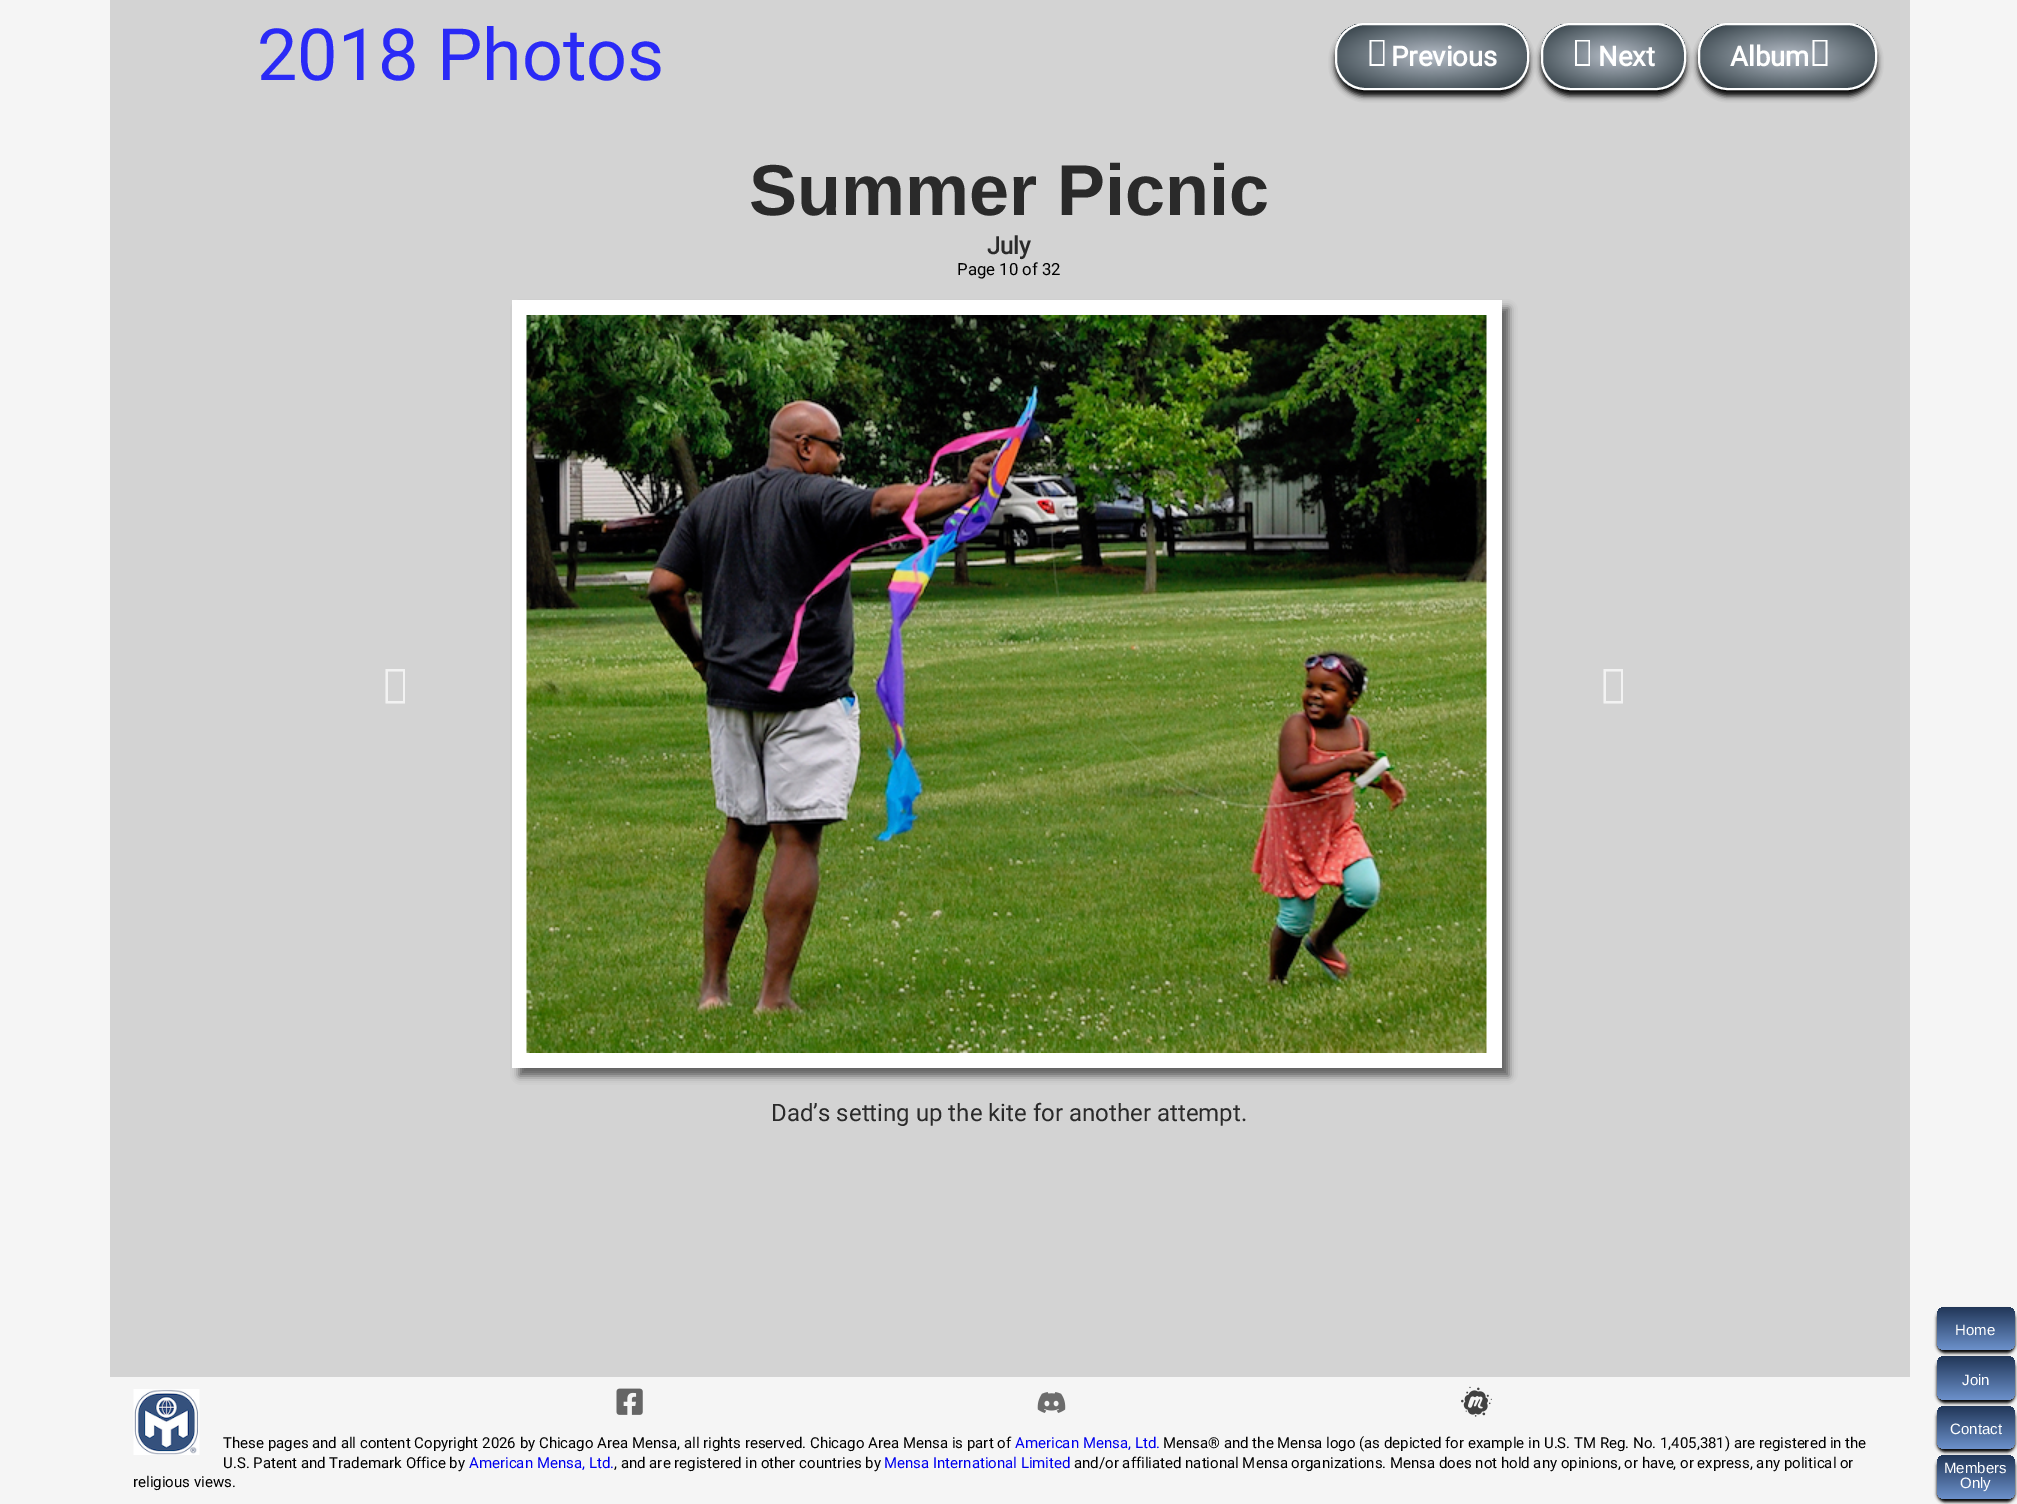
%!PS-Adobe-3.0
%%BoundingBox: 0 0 2017 1504
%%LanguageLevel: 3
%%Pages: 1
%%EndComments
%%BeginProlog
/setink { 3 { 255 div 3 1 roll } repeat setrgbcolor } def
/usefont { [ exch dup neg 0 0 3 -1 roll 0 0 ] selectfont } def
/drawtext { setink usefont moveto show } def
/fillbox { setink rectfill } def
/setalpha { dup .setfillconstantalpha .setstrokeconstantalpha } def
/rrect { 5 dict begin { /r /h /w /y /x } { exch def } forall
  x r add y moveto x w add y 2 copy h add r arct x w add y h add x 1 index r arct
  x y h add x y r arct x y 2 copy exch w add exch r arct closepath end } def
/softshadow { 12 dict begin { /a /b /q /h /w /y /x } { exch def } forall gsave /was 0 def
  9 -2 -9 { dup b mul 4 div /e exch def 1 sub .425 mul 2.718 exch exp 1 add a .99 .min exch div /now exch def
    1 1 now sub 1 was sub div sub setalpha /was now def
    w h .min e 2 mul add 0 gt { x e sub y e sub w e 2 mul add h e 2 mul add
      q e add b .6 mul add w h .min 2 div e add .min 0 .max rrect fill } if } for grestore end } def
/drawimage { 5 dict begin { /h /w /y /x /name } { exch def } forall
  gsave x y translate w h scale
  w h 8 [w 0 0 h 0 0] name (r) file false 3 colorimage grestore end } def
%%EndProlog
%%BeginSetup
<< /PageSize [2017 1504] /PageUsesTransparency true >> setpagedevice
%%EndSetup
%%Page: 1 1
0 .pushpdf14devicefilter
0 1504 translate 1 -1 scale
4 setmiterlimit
0 0 2017 1504 245 245 245 fillbox
110 0 1800 1377 211 211 211 fillbox
(2018 Photos) 257 80 /Roboto-Regular 72 42 42 246 drawtext
0 0 0 setink
1335 29 194 67 30 3 1 softshadow
gsave
1335 23 194 67 30 rrect clip newpath
gsave 1337 24 moveto 1527 24 lineto 1527 89 lineto 1337 89 lineto closepath clip newpath 1432 56 translate 135 46 scale
<< /ShadingType 3 /ColorSpace /DeviceRGB /Coords [0 0 0 0 0 1] /Extend [true true] /Function << /FunctionType 3 /Domain [0 1] /Functions [<< /FunctionType 2 /Domain [0 1] /C0 [0.71 0.741 0.784] /C1 [0.51 0.549 0.584] /N 1 >> << /FunctionType 2 /Domain [0 1] /C0 [0.51 0.549 0.584] /C1 [0.157 0.204 0.231] /N 1 >>] /Bounds [0.36] /Encode [0 1 0 1] >> >> shfill grestore
grestore
255 255 255 setink
2 setlinewidth
1336 24 192 65 29 rrect stroke
1369.5 66 moveto 1369.5 40 lineto 1384.5 40 lineto 1384.5 66 lineto closepath 1371.5 64 moveto 1383 64 lineto 1383 41.5 lineto 1371.5 41.5 lineto closepath fill
(Previous) 1391 66 /Roboto-Bold 27.5 255 255 255 drawtext
0 0 0 setink
1541 29 145 67 30 3 1 softshadow
gsave
1541 23 145 67 30 rrect clip newpath
gsave 1542 24 moveto 1685 24 lineto 1685 89 lineto 1542 89 lineto closepath clip newpath 1613 56 translate 101 46 scale
<< /ShadingType 3 /ColorSpace /DeviceRGB /Coords [0 0 0 0 0 1] /Extend [true true] /Function << /FunctionType 3 /Domain [0 1] /Functions [<< /FunctionType 2 /Domain [0 1] /C0 [0.71 0.741 0.784] /C1 [0.51 0.549 0.584] /N 1 >> << /FunctionType 2 /Domain [0 1] /C0 [0.51 0.549 0.584] /C1 [0.157 0.204 0.231] /N 1 >>] /Bounds [0.36] /Encode [0 1 0 1] >> >> shfill grestore
grestore
255 255 255 setink
1542 24 143 65 29 rrect stroke
1575 66 moveto 1575 40 lineto 1590 40 lineto 1590 66 lineto closepath 1577 64 moveto 1588.5 64 lineto 1588.5 41.5 lineto 1577 41.5 lineto closepath fill
(Next) 1598 66 /Roboto-Bold 27.5 255 255 255 drawtext
0 0 0 setink
1698 29 179 67 30 3 1 softshadow
gsave
1698 23 179 67 30 rrect clip newpath
gsave 1700 24 moveto 1875 24 lineto 1875 89 lineto 1700 89 lineto closepath clip newpath 1787 56 translate 124 46 scale
<< /ShadingType 3 /ColorSpace /DeviceRGB /Coords [0 0 0 0 0 1] /Extend [true true] /Function << /FunctionType 3 /Domain [0 1] /Functions [<< /FunctionType 2 /Domain [0 1] /C0 [0.71 0.741 0.784] /C1 [0.51 0.549 0.584] /N 1 >> << /FunctionType 2 /Domain [0 1] /C0 [0.51 0.549 0.584] /C1 [0.157 0.204 0.231] /N 1 >>] /Bounds [0.36] /Encode [0 1 0 1] >> >> shfill grestore
grestore
255 255 255 setink
1699 24 177 65 29 rrect stroke
(Album) 1730 66 /Roboto-Bold 27.5 255 255 255 drawtext
1812.5 66 moveto 1812.5 40 lineto 1827.5 40 lineto 1827.5 66 lineto closepath 1814.5 64 moveto 1825.5 64 lineto 1825.5 41.5 lineto 1814.5 41.5 lineto closepath fill
(Summer Picnic) 749 215 /LiberationSans-Bold 72 42 42 42 drawtext
(July) 987 254 /Roboto-Bold 24 42 42 42 drawtext
(Page 10 of 32) 957 275 /Roboto-Regular 16.75 0 0 0 drawtext
242 242 242 setink
385.5 703.5 moveto 385.5 669 lineto 405 669 lineto 405 703.5 lineto closepath 388 701 moveto 403 701 lineto 403 671.5 lineto 388 671.5 lineto closepath fill
68 68 68 setink
519 308 990 768 0 4 0.8 softshadow
512 300 990 768 255 255 255 fillbox
(assets/img1.rgb) 526 315 961 738 drawimage
242 242 242 setink
1603.5 703.5 moveto 1603.5 669 lineto 1623 669 lineto 1623 703.5 lineto closepath 1606 701 moveto 1621 701 lineto 1621 671.5 lineto 1606 671.5 lineto closepath fill
(Dad’s setting up the kite for another attempt.) 771 1121 /Roboto-Regular 24 42 42 42 drawtext
(assets/img2.rgb) 133 1389 67 66 drawimage
(assets/img3.rgb) 616 1388 27 27 drawimage
(assets/img4.rgb) 1037 1392 29 21 drawimage
(assets/img5.rgb) 1461 1386 31 31 drawimage
(These pages and all content Copyright 2026 by Chicago Area Mensa, all rights reserved. Chicago Area Mensa is part of) 223 1448 /Roboto-Regular 15 0 0 0 drawtext
(American Mensa, Ltd.) 1015 1448 /Roboto-Regular 15 0 0 238 drawtext
(Mensa® and the Mensa logo \(as depicted for example in U.S. TM Reg. No. 1,405,381\) are registered in the) 1163 1448 /Roboto-Regular 15 0 0 0 drawtext
(U.S. Patent and Trademark Office by) 223 1468 /Roboto-Regular 15 0 0 0 drawtext
(American Mensa, Ltd.) 469 1468 /Roboto-Regular 15 0 0 238 drawtext
(, and are registered in other countries by) 614 1468 /Roboto-Regular 15 0 0 0 drawtext
(Mensa International Limited) 884 1468 /Roboto-Regular 15 0 0 238 drawtext
(and/or affiliated national Mensa organizations. Mensa does not hold any opinions, or have, or express, any political or) 1074 1468 /Roboto-Regular 15 0 0 0 drawtext
(religious views.) 133 1487 /Roboto-Regular 15 0 0 0 drawtext
1937 1310 78 43 8 1.5 1 softshadow
gsave 1937 1307 78 43 8 rrect clip newpath
<< /ShadingType 2 /ColorSpace /DeviceRGB /Coords [1976 1350 1976 1307] /Extend [true true] /Function << /FunctionType 2 /Domain [0 1] /C0 [0.424 0.569 0.796] /C1 [0.129 0.212 0.341] /N 1 >> >> shfill grestore
(Home) 1955 1335 /LiberationSans-Regular 15 255 255 255 drawtext
0 0 0 setink
1937 1359 78 44 8 1.5 1 softshadow
gsave 1937 1356 78 44 8 rrect clip newpath
<< /ShadingType 2 /ColorSpace /DeviceRGB /Coords [1976 1400 1976 1356] /Extend [true true] /Function << /FunctionType 2 /Domain [0 1] /C0 [0.424 0.569 0.796] /C1 [0.129 0.212 0.341] /N 1 >> >> shfill grestore
(Join) 1962 1385 /LiberationSans-Regular 15 255 255 255 drawtext
0 0 0 setink
1937 1409 78 43 8 1.5 1 softshadow
gsave 1937 1406 78 43 8 rrect clip newpath
<< /ShadingType 2 /ColorSpace /DeviceRGB /Coords [1976 1449 1976 1406] /Extend [true true] /Function << /FunctionType 2 /Domain [0 1] /C0 [0.424 0.569 0.796] /C1 [0.129 0.212 0.341] /N 1 >> >> shfill grestore
(Contact) 1950 1434 /LiberationSans-Regular 15 255 255 255 drawtext
0 0 0 setink
1937 1458 78 44 8 1.5 1 softshadow
gsave 1937 1455 78 44 8 rrect clip newpath
<< /ShadingType 2 /ColorSpace /DeviceRGB /Coords [1976 1499 1976 1455] /Extend [true true] /Function << /FunctionType 2 /Domain [0 1] /C0 [0.424 0.569 0.796] /C1 [0.129 0.212 0.341] /N 1 >> >> shfill grestore
(Members) 1944 1473 /LiberationSans-Regular 15 255 255 255 drawtext
(Only) 1960 1488 /LiberationSans-Regular 15 255 255 255 drawtext
.poppdf14devicefilter showpage
%%EOF
